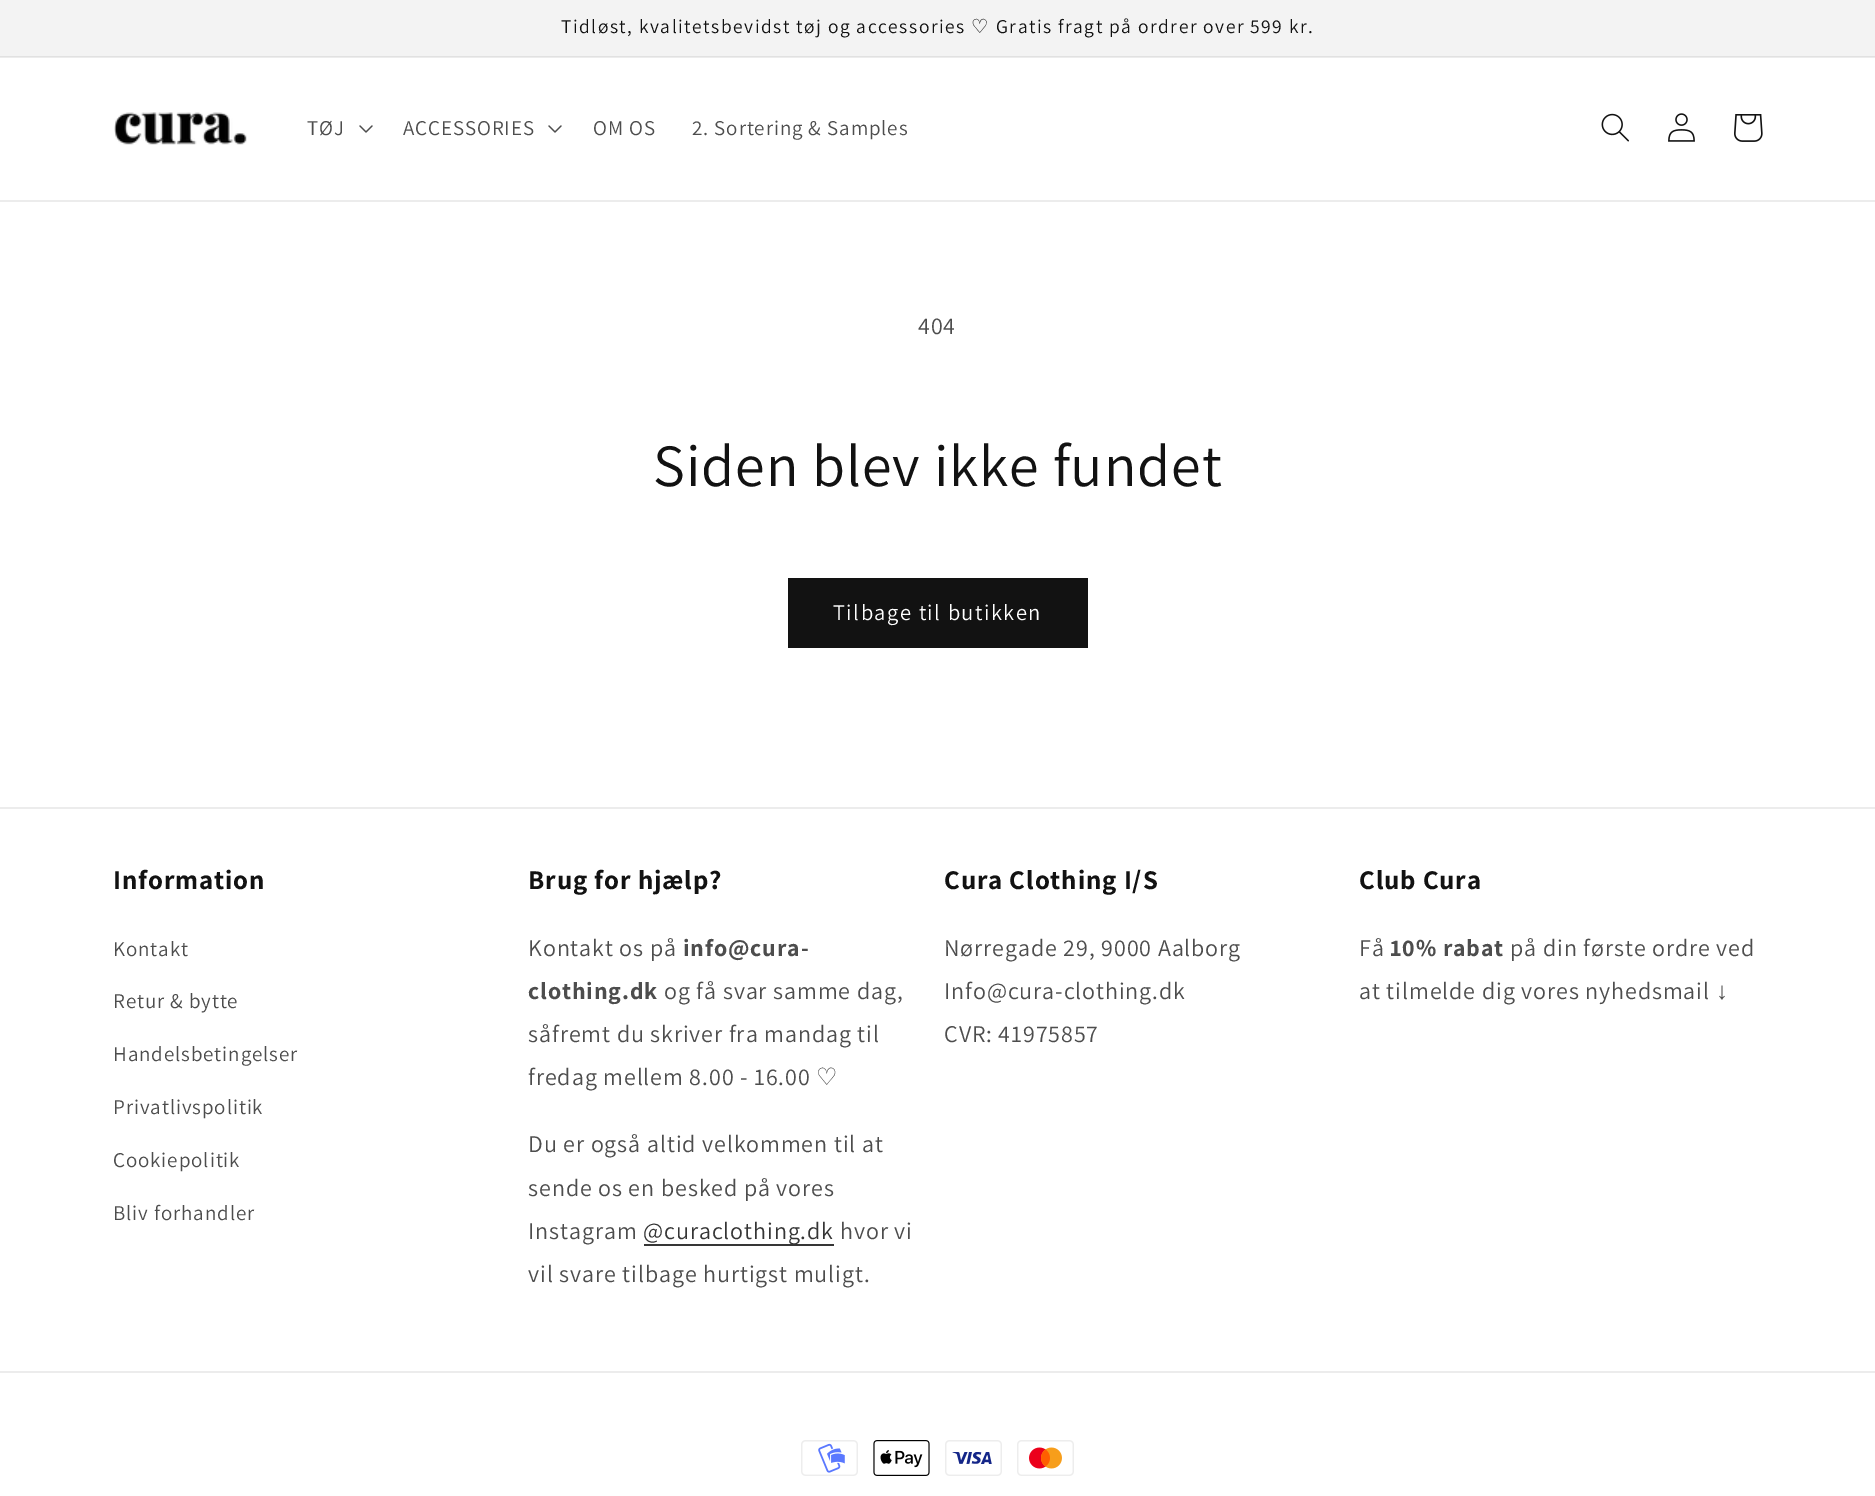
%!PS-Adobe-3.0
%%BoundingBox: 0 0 1875 1496
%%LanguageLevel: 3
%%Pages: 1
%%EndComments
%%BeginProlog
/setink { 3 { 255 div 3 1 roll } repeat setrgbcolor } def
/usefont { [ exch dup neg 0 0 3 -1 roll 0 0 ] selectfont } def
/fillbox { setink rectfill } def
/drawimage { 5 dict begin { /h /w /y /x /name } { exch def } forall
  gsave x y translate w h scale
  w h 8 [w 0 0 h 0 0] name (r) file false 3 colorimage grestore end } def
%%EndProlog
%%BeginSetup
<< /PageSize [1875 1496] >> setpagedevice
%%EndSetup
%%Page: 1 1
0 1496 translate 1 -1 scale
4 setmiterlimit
0 0 1875 1496 255 255 255 fillbox
0 57 1875 1 236 236 236 fillbox
0 0 1875 56 243 243 243 fillbox
0 56 1875 1 225 225 225 fillbox
/Assistant-Regular 19.5 usefont
18 18 18 setink
561 33 moveto 1.5 0 (Tidløst, kvalitetsbevidst tøj og accessories) ashow
/DejaVuSans-Regular 19.5 usefont
971 33 moveto 1.5 0 (♡) ashow
/Assistant-Regular 19.5 usefont
996 33 moveto 1.5 0 (Gratis fragt på ordrer over 599 kr.) ashow
0 200 1875 2 236 236 236 fillbox
(assets/img1.rgb) 114 112 133 33 drawimage
/Assistant-Regular 21 usefont
77 77 77 setink
307 135 moveto 0.9 0 (TØJ) ashow
(assets/img2.rgb) 359 125 14 8 drawimage
403 135 moveto 0.9 0 (ACCESSORIES) ashow
(assets/img2.rgb) 548 125 14 8 drawimage
593 135 moveto 0.9 0 (OM OS) ashow
692 135 moveto 0.9 0 (2. Sortering & Samples) ashow
(assets/img3.rgb) 1601 113 28 29 drawimage
(assets/img4.rgb) 1668 113 27 29 drawimage
(assets/img5.rgb) 1734 114 29 28 drawimage
/Assistant-Regular 24 usefont
918 334 moveto 0.9 0 (404) ashow
/Assistant-Regular 60 usefont
18 18 18 setink
653 486 moveto 0.9 0 (Siden blev ikke fundet) ashow
788 578 300 70 18 18 18 fillbox
/Assistant-Regular 22.5 usefont
255 255 255 setink
833 620 moveto 1.5 0 (Tilbage til butikken) ashow
0 807 1875 2 236 236 236 fillbox
/Assistant-Bold 27 usefont
18 18 18 setink
113 889 moveto 0.9 0 (Information) ashow
/Assistant-Regular 21 usefont
77 77 77 setink
113 956 moveto 0.9 0 (Kontakt) ashow
113 1008 moveto 0.9 0 (Retur & bytte) ashow
113 1061 moveto 0.9 0 (Handelsbetingelser) ashow
113 1114 moveto 0.9 0 (Privatlivspolitik) ashow
113 1167 moveto 0.9 0 (Cookiepolitik) ashow
113 1220 moveto 0.9 0 (Bliv forhandler) ashow
/Assistant-Bold 27 usefont
18 18 18 setink
528 889 moveto 0.9 0 (Brug for hjælp?) ashow
/Assistant-Regular 24 usefont
77 77 77 setink
528 956 moveto 0.9 0 (Kontakt os på) ashow
/Assistant-Bold 24 usefont
683 956 moveto 0.9 0 (info@cura-) ashow
528 999 moveto 0.9 0 (clothing.dk) ashow
/Assistant-Regular 24 usefont
664 999 moveto 0.9 0 (og få svar samme dag,) ashow
528 1042 moveto 0.9 0 (såfremt du skriver fra mandag til) ashow
528 1085 moveto 0.9 0 (fredag mellem 8.00 - 16.00) ashow
/DejaVuSans-Regular 24 usefont
816 1085 moveto 0.9 0 (♡) ashow
/Assistant-Regular 24 usefont
528 1152 moveto 0.9 0 (Du er også altid velkommen til at) ashow
528 1196 moveto 0.9 0 (sende os en besked på vores) ashow
528 1239 moveto 0.9 0 (Instagram) ashow
644 1244 190 2 54 54 54 fillbox
53 53 53 setink
643 1239 moveto 0.9 0 (@curaclothing.dk) ashow
77 77 77 setink
840 1239 moveto 0.9 0 (hvor vi) ashow
528 1282 moveto 0.9 0 (vil svare tilbage hurtigst muligt.) ashow
/Assistant-Bold 27 usefont
18 18 18 setink
944 889 moveto 0.9 0 (Cura Clothing I/S) ashow
/Assistant-Regular 24 usefont
77 77 77 setink
944 956 moveto 0.9 0 (Nørregade 29, 9000 Aalborg) ashow
944 999 moveto 0.9 0 (Info@cura-clothing.dk) ashow
944 1042 moveto 0.9 0 (CVR: 41975857) ashow
/Assistant-Bold 27 usefont
18 18 18 setink
1359 889 moveto 0.9 0 (Club Cura) ashow
/Assistant-Regular 24 usefont
77 77 77 setink
1359 956 moveto 0.9 0 (Få) ashow
/Assistant-Bold 24 usefont
1390 956 moveto 0.9 0 (10% rabat) ashow
/Assistant-Regular 24 usefont
1510 956 moveto 0.9 0 (på din første ordre ved) ashow
1359 999 moveto 0.9 0 (at tilmelde dig vores nyhedsmail) ashow
/LiberationSans-Regular 24 usefont
1716 999 moveto 0.9 0 (↓) ashow
0 1371 1875 2 236 236 236 fillbox
(assets/img6.rgb) 801 1440 57 36 drawimage
(assets/img7.rgb) 873 1440 57 36 drawimage
(assets/img8.rgb) 945 1440 57 36 drawimage
(assets/img9.rgb) 1017 1440 57 36 drawimage
showpage
%%EOF
